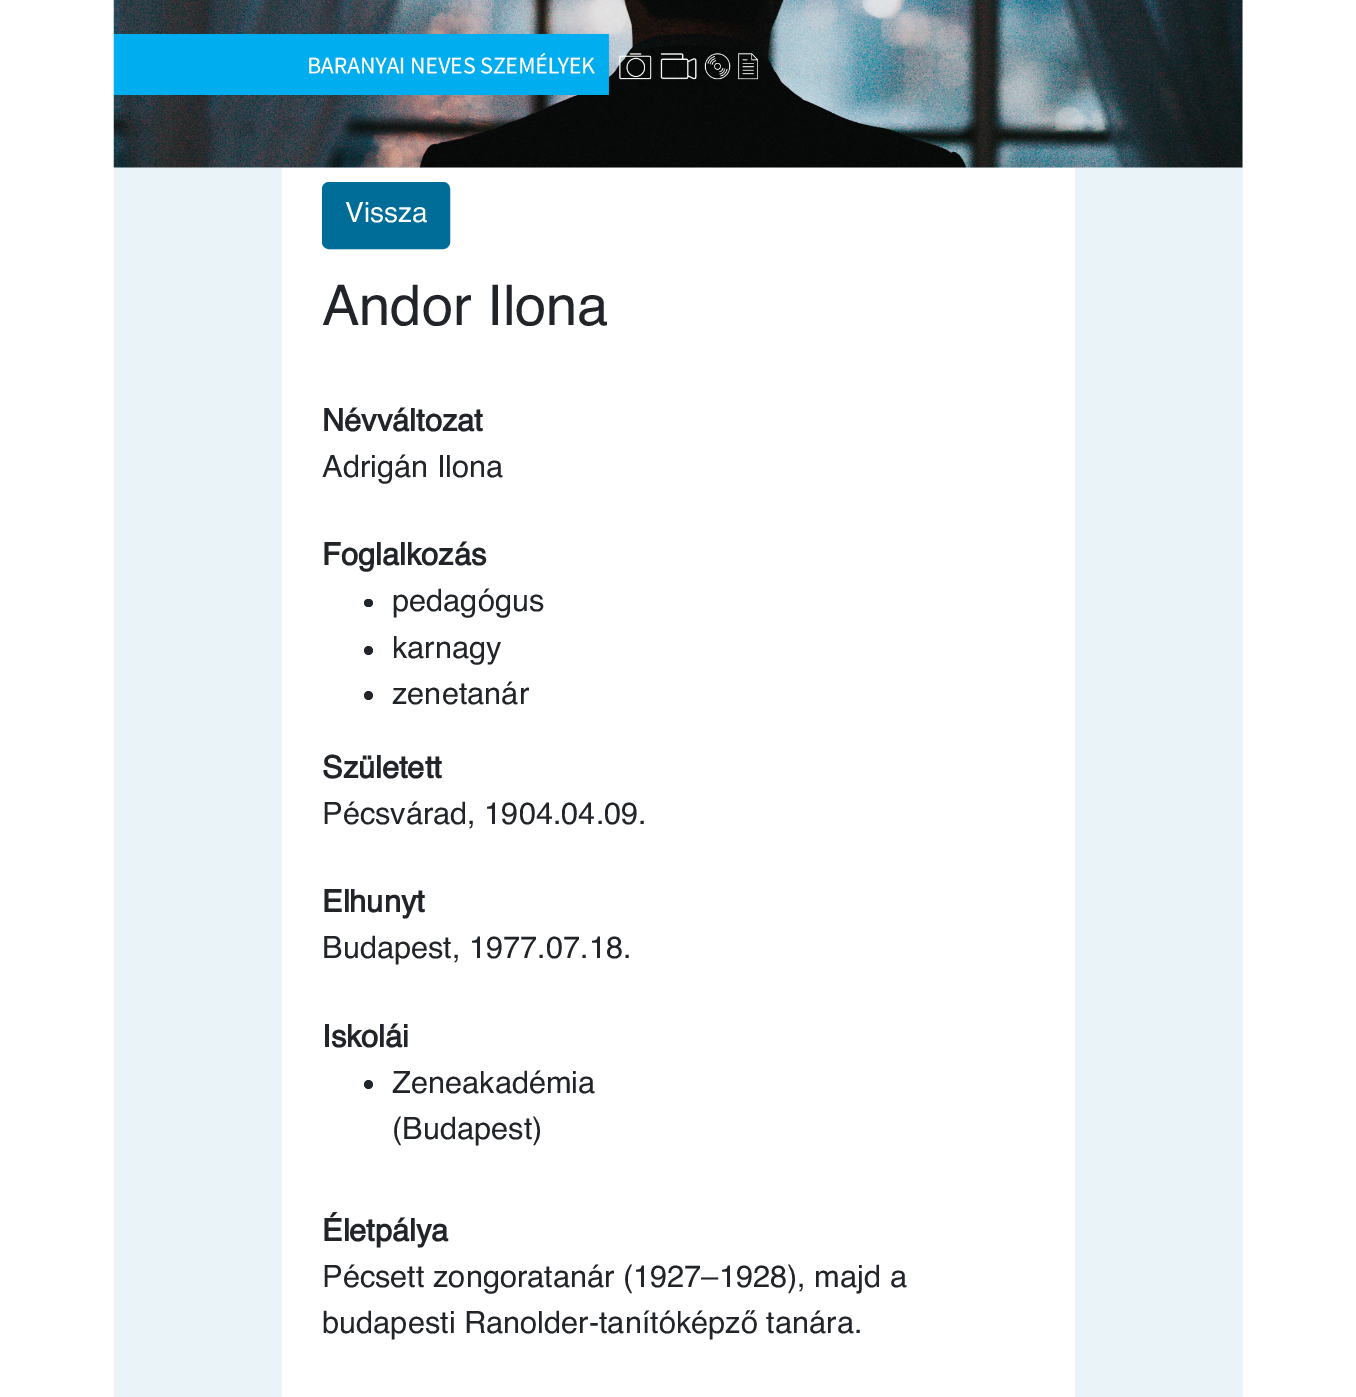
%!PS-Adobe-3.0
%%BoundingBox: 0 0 1356 1397
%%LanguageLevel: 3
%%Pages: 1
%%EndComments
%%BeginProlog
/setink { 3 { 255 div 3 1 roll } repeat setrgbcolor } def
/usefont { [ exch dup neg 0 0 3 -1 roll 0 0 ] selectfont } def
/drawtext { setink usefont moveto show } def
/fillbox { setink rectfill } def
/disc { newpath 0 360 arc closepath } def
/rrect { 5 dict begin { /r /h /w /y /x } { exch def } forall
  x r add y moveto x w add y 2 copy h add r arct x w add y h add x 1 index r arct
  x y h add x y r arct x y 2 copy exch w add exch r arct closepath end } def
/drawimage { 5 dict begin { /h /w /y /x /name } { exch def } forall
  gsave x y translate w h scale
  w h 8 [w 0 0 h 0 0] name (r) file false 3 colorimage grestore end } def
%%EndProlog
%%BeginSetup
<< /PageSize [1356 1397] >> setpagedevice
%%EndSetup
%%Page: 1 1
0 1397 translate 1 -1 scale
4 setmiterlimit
0 0 1356 1397 255 255 255 fillbox
114 0 1129 1397 234 243 248 fillbox
(assets/img1.rgb) 113 0 1130 168 drawimage
282 168 793 1229 255 255 255 fillbox
0 109 152 setink
323 183 126 65 6 rrect gsave fill grestore
2 setlinewidth
stroke
(Vissza) 345 222 /Helvetica-Regular 28 255 255 255 drawtext
(Andor Ilona) 322 325 /Helvetica-Regular 56 33 37 41 drawtext
(Névváltozat) 322 431 /Helvetica-Bold 30.75 33 37 41 drawtext
(Adrigán Ilona) 322 477 /Helvetica-Regular 30.75 33 37 41 drawtext
(Foglalkozás) 322 565 /Helvetica-Bold 30.75 33 37 41 drawtext
364 599 9 8 4 rrect fill
(pedagógus) 392 611 /Helvetica-Regular 30.75 33 37 41 drawtext
368.5 650.5 4.5 disc fill
(karnagy) 392 658 /Helvetica-Regular 30.75 33 37 41 drawtext
368.5 695.5 4.5 disc fill
(zenetanár) 392 704 /Helvetica-Regular 30.75 33 37 41 drawtext
(Született) 322 778 /Helvetica-Bold 30.75 33 37 41 drawtext
(Pécsvárad, 1904.04.09.) 322 824 /Helvetica-Regular 30.75 33 37 41 drawtext
(Elhunyt) 322 912 /Helvetica-Bold 30.75 33 37 41 drawtext
(Budapest, 1977.07.18.) 322 958 /Helvetica-Regular 30.75 33 37 41 drawtext
(Iskolái) 322 1047 /Helvetica-Bold 30.75 33 37 41 drawtext
368.5 1084.5 4.5 disc fill
(Zeneakadémia) 392 1093 /Helvetica-Regular 30.75 33 37 41 drawtext
(\(Budapest\)) 392 1139 /Helvetica-Regular 30.75 33 37 41 drawtext
(Életpálya) 322 1241 /Helvetica-Bold 30.75 33 37 41 drawtext
(Pécsett zongoratanár \(1927–1928\), majd a) 322 1287 /Helvetica-Regular 30.75 33 37 41 drawtext
(budapesti Ranolder-tanítóképző tanára.) 322 1333 /Helvetica-Regular 30.75 33 37 41 drawtext
showpage
%%EOF
